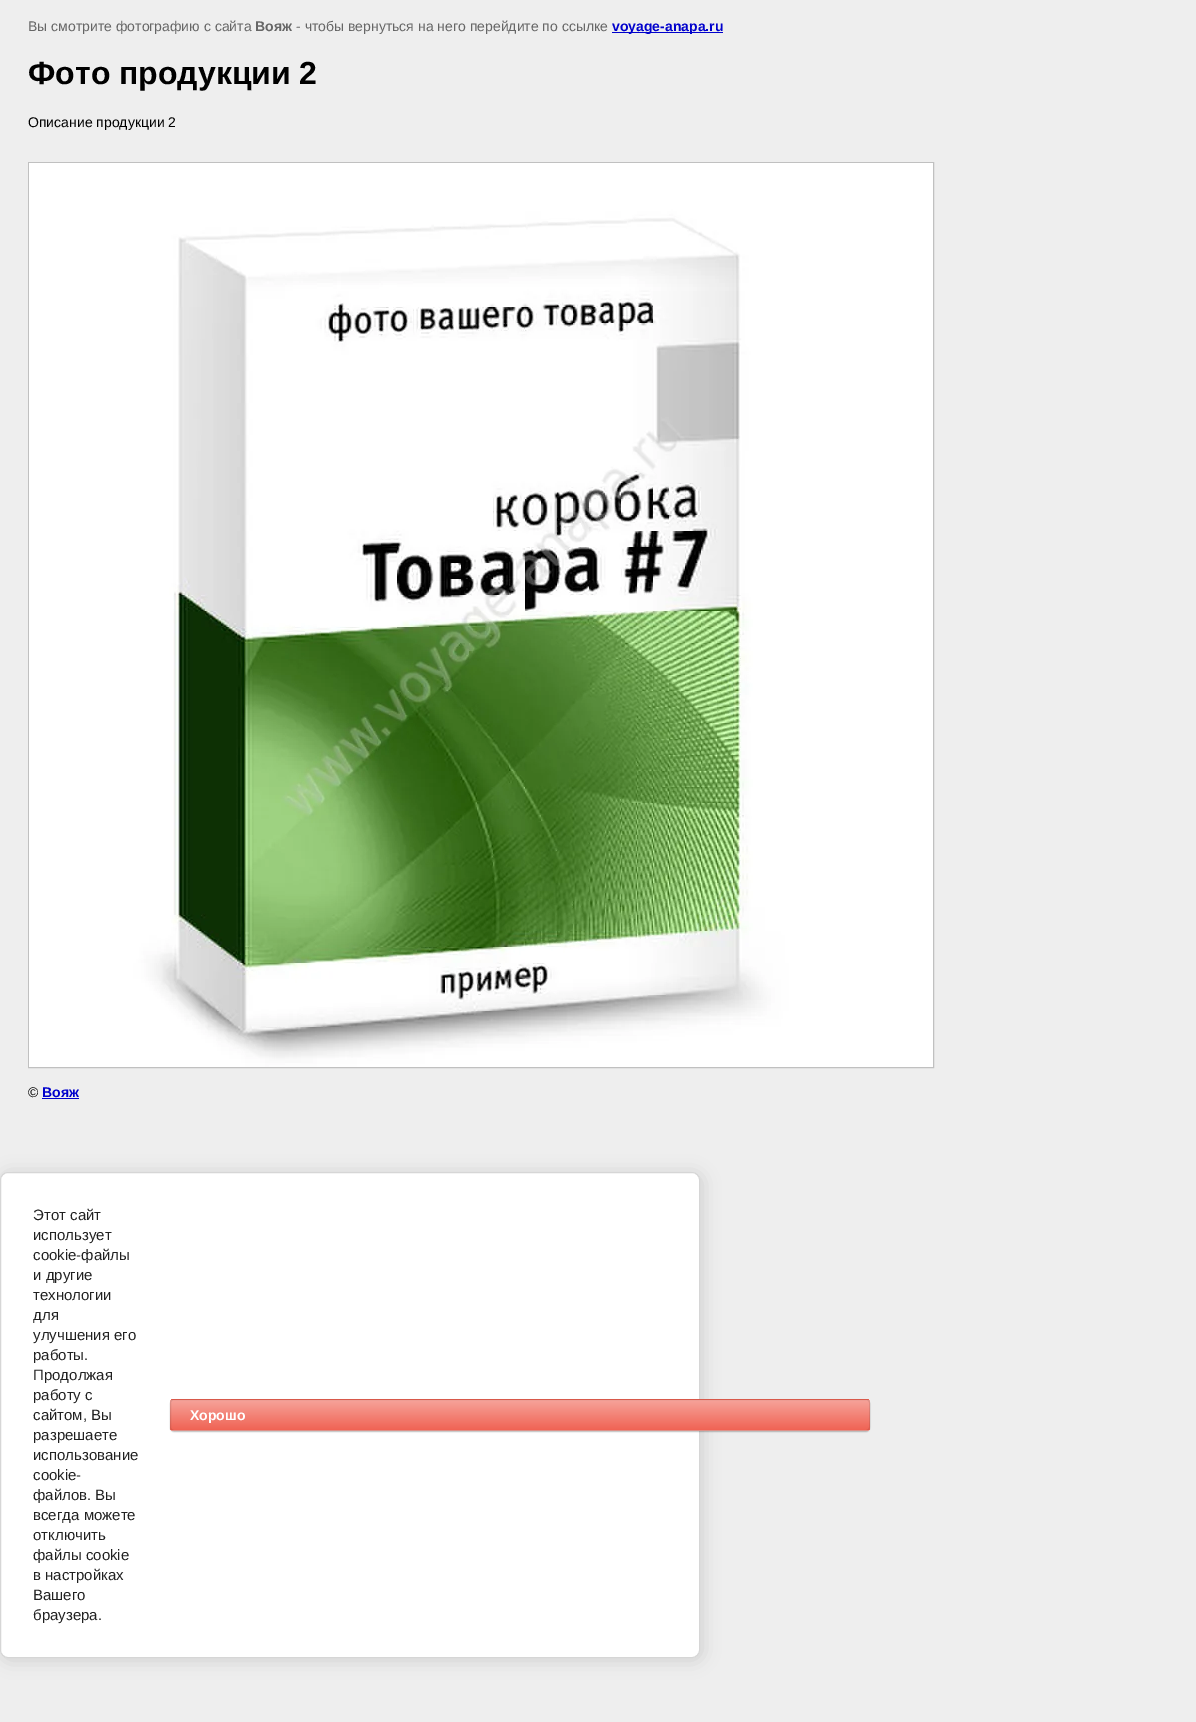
%!PS-Adobe-3.0
%%BoundingBox: 0 0 1196 1722
%%LanguageLevel: 3
%%Pages: 1
%%EndComments
%%BeginProlog
/setink { 3 { 255 div 3 1 roll } repeat setrgbcolor } def
/usefont { [ exch dup neg 0 0 3 -1 roll 0 0 ] selectfont } def
/drawtext { setink usefont moveto show } def
/fillbox { setink rectfill } def
/setalpha { dup .setfillconstantalpha .setstrokeconstantalpha } def
/rrect { 5 dict begin { /r /h /w /y /x } { exch def } forall
  x r add y moveto x w add y 2 copy h add r arct x w add y h add x 1 index r arct
  x y h add x y r arct x y 2 copy exch w add exch r arct closepath end } def
/softshadow { 12 dict begin { /a /b /q /h /w /y /x } { exch def } forall gsave /was 0 def
  9 -2 -9 { dup b mul 4 div /e exch def 1 sub .425 mul 2.718 exch exp 1 add a .99 .min exch div /now exch def
    1 1 now sub 1 was sub div sub setalpha /was now def
    w h .min e 2 mul add 0 gt { x e sub y e sub w e 2 mul add h e 2 mul add
      q e add b .6 mul add w h .min 2 div e add .min 0 .max rrect fill } if } for grestore end } def
/drawimage { 5 dict begin { /h /w /y /x /name } { exch def } forall
  gsave x y translate w h scale
  w h 8 [w 0 0 h 0 0] name (r) file false 3 colorimage grestore end } def
%%EndProlog
%%BeginSetup
<< /PageSize [1196 1722] /PageUsesTransparency true >> setpagedevice
%%EndSetup
%%Page: 1 1
0 .pushpdf14devicefilter
0 1722 translate 1 -1 scale
4 setmiterlimit
0 0 1196 1722 238 238 238 fillbox
(Вы смотрите фотографию с сайта) 28 31 /LiberationSans-Regular 14 102 102 102 drawtext
(Вояж) 255 31 /LiberationSans-Bold 14 102 102 102 drawtext
(- чтобы вернуться на него перейдите по ссылке) 296 31 /LiberationSans-Regular 14 102 102 102 drawtext
612 32 111 1 0 0 204 fillbox
(voyage-anapa.ru) 612 31 /LiberationSans-Bold 14 0 0 204 drawtext
(Фото продукции 2) 28 84 /LiberationSans-Bold 32 0 0 0 drawtext
(Описание продукции 2) 28 127 /LiberationSans-Regular 14 0 0 0 drawtext
192 192 192 setink
28.5 162.5 905 905 rectstroke
(assets/img1.rgb) 29 163 904 904 drawimage
(©) 28 1097 /LiberationSans-Regular 14 0 0 0 drawtext
(Вояж) 42 1097 /LiberationSans-Bold 14 0 0 204 drawtext
42 1098 37 1 0 0 204 fillbox
0 0 0 setink
2 1174 700 486 8 9 0.14 softshadow
255 255 255 setink
0.5 1172.5 699 485 7.5 rrect gsave fill grestore
214 214 214 setink
stroke
(Этот сайт) 33 1220 /LiberationSans-Regular 15 33 33 33 drawtext
(использует) 33 1240 /LiberationSans-Regular 15 33 33 33 drawtext
(cookie-файлы) 33 1260 /LiberationSans-Regular 15 33 33 33 drawtext
(и другие) 33 1280 /LiberationSans-Regular 15 33 33 33 drawtext
(технологии) 33 1300 /LiberationSans-Regular 15 33 33 33 drawtext
(для) 33 1320 /LiberationSans-Regular 15 33 33 33 drawtext
(улучшения его) 33 1340 /LiberationSans-Regular 15 33 33 33 drawtext
(работы.) 33 1360 /LiberationSans-Regular 15 33 33 33 drawtext
(Продолжая) 33 1380 /LiberationSans-Regular 15 33 33 33 drawtext
(работу с) 33 1400 /LiberationSans-Regular 15 33 33 33 drawtext
(сайтом, Вы) 33 1420 /LiberationSans-Regular 15 33 33 33 drawtext
(разрешаете) 33 1440 /LiberationSans-Regular 15 33 33 33 drawtext
(использование) 33 1460 /LiberationSans-Regular 15 33 33 33 drawtext
(cookie-) 33 1480 /LiberationSans-Regular 15 33 33 33 drawtext
(файлов. Вы) 33 1500 /LiberationSans-Regular 15 33 33 33 drawtext
(всегда можете) 33 1520 /LiberationSans-Regular 15 33 33 33 drawtext
(отключить) 33 1540 /LiberationSans-Regular 15 33 33 33 drawtext
(файлы cookie) 33 1560 /LiberationSans-Regular 15 33 33 33 drawtext
(в настройках) 33 1580 /LiberationSans-Regular 15 33 33 33 drawtext
(Вашего) 33 1600 /LiberationSans-Regular 15 33 33 33 drawtext
(браузера.) 33 1620 /LiberationSans-Regular 15 33 33 33 drawtext
0 0 0 setink
170 1400 700 32 4 0.5 0.2 softshadow
gsave
170 1399 700 32 4 rrect clip newpath
gsave 170 1399 moveto 870 1399 lineto 870 1400 lineto 170 1400 lineto closepath clip newpath
<< /ShadingType 2 /ColorSpace /DeviceRGB /Coords [520 1370 520 1400] /Extend [true true] /Function << /FunctionType 2 /Domain [0 1] /C0 [0.965 0.639 0.604] /C1 [0.941 0.388 0.329] /N 1 >> >> shfill grestore
gsave 170 1400 moveto 870 1400 lineto 870 1430 lineto 170 1430 lineto closepath clip newpath
<< /ShadingType 2 /ColorSpace /DeviceRGB /Coords [520 1400 520 1430] /Extend [true true] /Function << /FunctionType 2 /Domain [0 1] /C0 [0.965 0.639 0.604] /C1 [0.941 0.388 0.329] /N 1 >> >> shfill grestore
gsave 170 1430 moveto 870 1430 lineto 870 1431 lineto 170 1431 lineto closepath clip newpath
<< /ShadingType 2 /ColorSpace /DeviceRGB /Coords [520 1430 520 1460] /Extend [true true] /Function << /FunctionType 2 /Domain [0 1] /C0 [0.965 0.639 0.604] /C1 [0.941 0.388 0.329] /N 1 >> >> shfill grestore
grestore
0.1 setalpha
170.5 1399.5 699 31 3.5 rrect stroke
1 setalpha
(Хорошо) 190 1420 /LiberationSans-Bold 14 255 255 255 drawtext
.poppdf14devicefilter showpage
%%EOF
